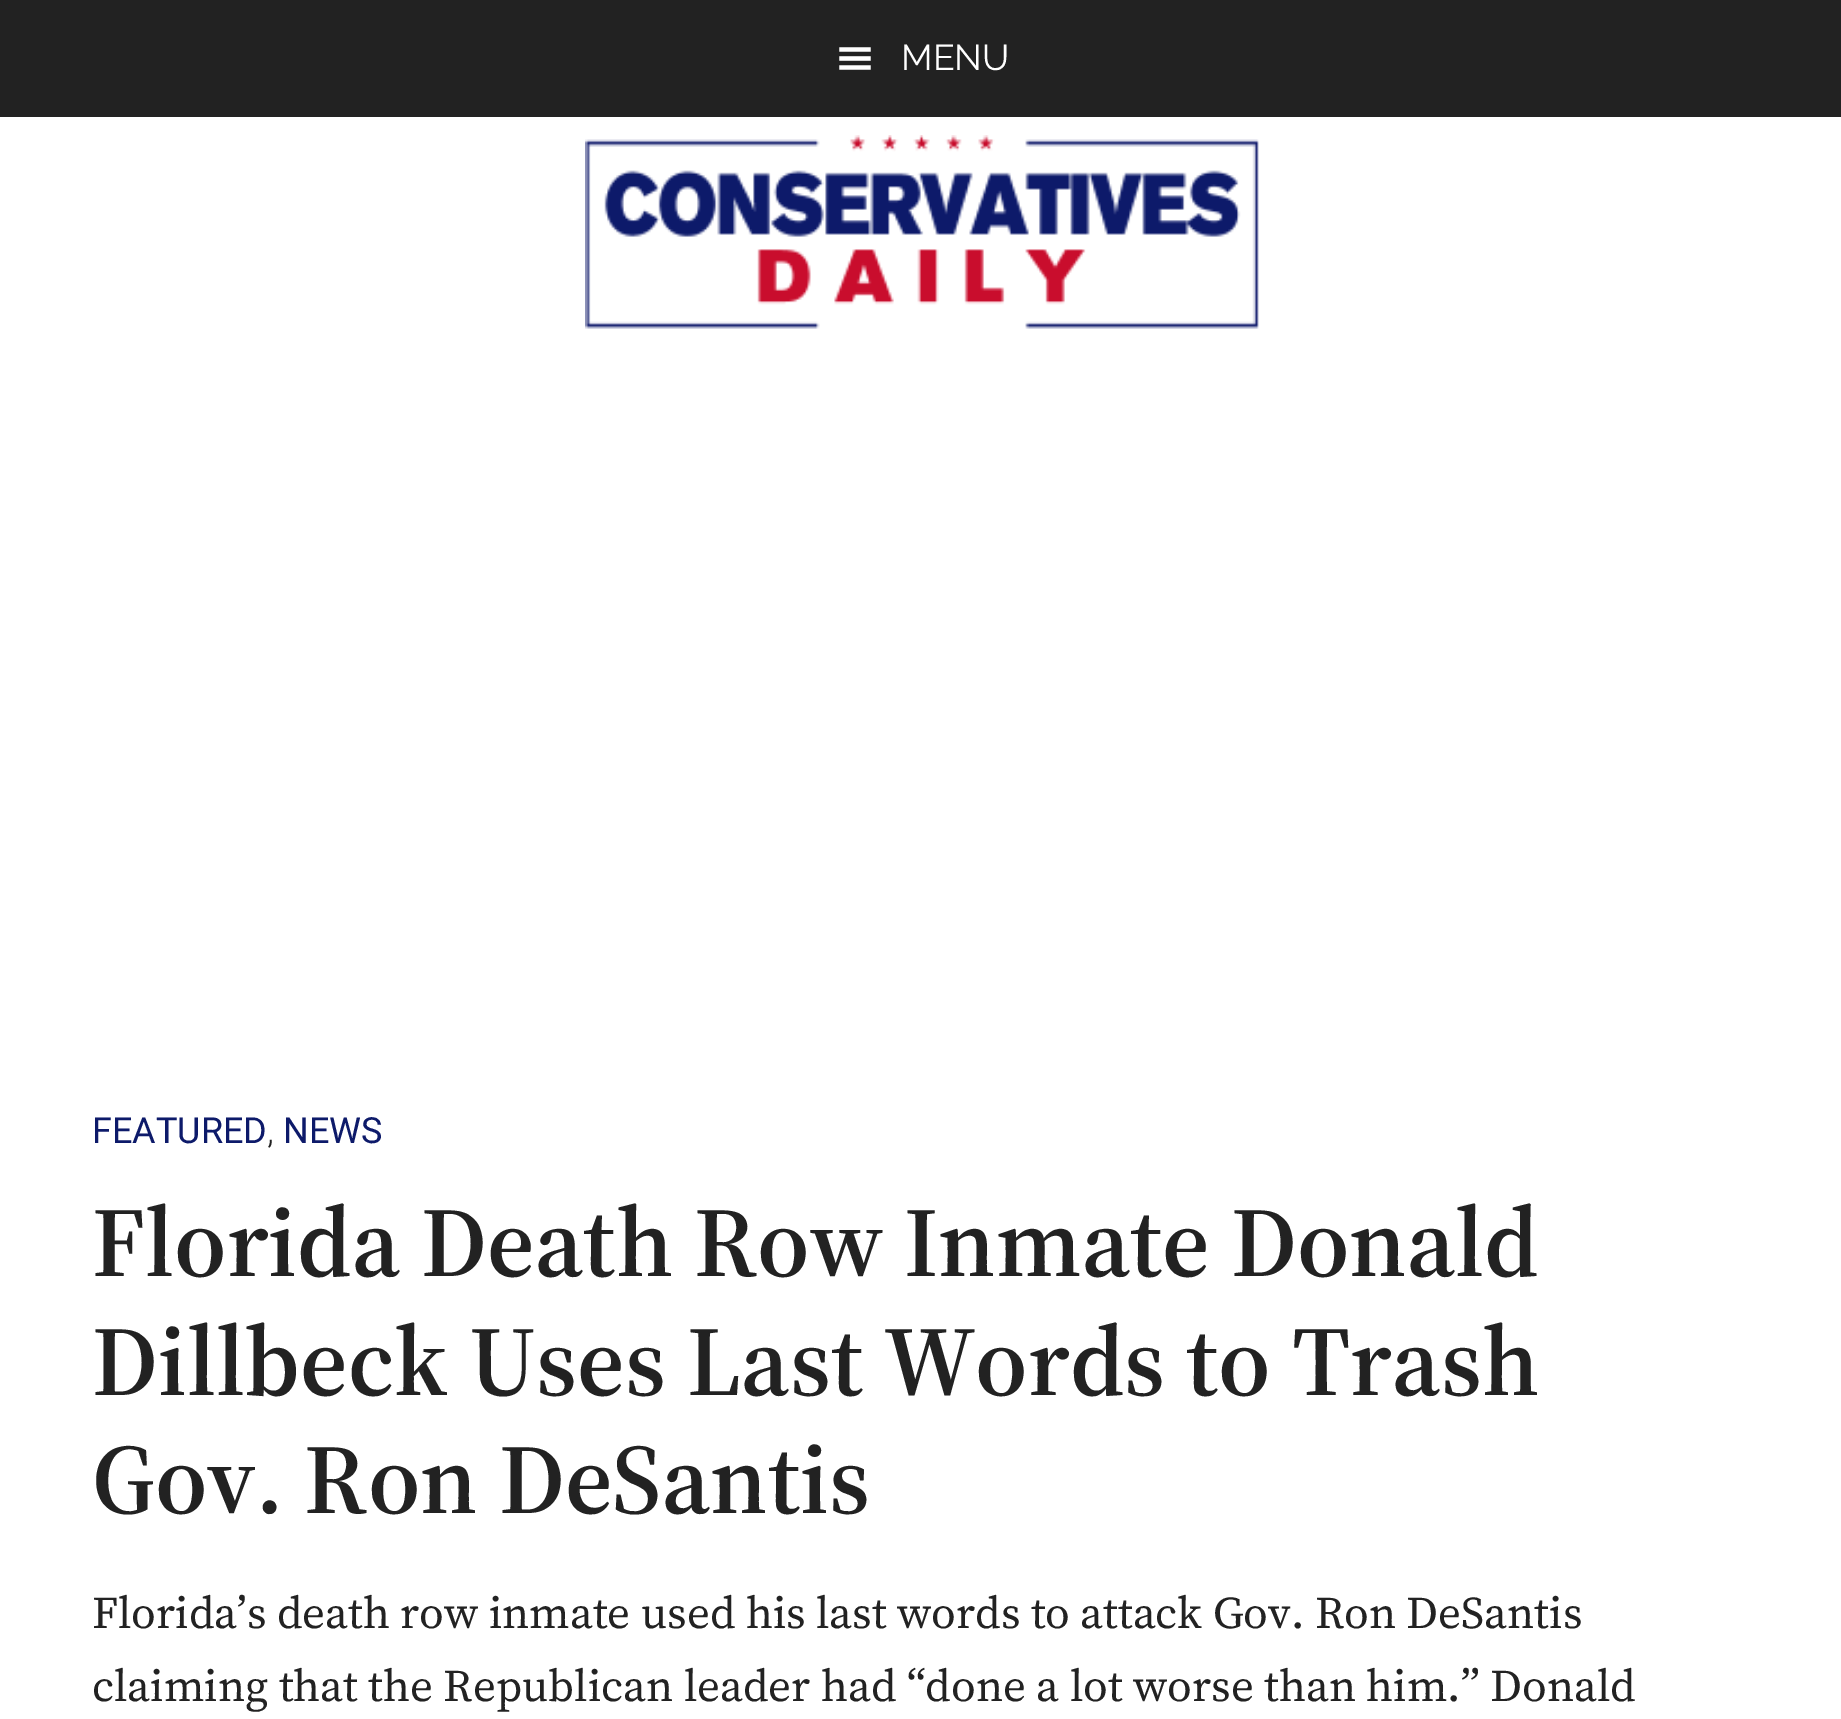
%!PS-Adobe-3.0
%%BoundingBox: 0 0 1841 1719
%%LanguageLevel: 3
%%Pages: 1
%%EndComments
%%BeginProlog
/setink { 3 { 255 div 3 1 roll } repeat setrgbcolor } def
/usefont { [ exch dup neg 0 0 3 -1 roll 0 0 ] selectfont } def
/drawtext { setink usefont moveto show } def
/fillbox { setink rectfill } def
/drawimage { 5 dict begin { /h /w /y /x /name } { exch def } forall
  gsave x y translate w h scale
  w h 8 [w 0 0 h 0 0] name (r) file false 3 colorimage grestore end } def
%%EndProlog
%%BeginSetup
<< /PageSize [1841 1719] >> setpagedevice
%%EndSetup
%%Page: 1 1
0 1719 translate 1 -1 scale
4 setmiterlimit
0 0 1841 1719 255 255 255 fillbox
0 0 1841 117 34 34 34 fillbox
(assets/img1.rgb) 839 47 32 23 drawimage
(MENU) 901 70 /Raleway-Regular 36 255 255 255 drawtext
(assets/img2.rgb) 585 135 674 194 drawimage
(FEATURED) 92 1143 /Roboto-Regular 36 13 26 106 drawtext
(,) 267 1143 /Roboto-Light 36 34 34 34 drawtext
(NEWS) 283 1143 /Roboto-Regular 36 13 26 106 drawtext
(Florida Death Row Inmate Donald) 92 1276 /SourceSerif4-SemiBold 99 34 34 34 drawtext
(Dillbeck Uses Last Words to Trash) 92 1395 /SourceSerif4-SemiBold 99 34 34 34 drawtext
(Gov. Ron DeSantis) 92 1513 /SourceSerif4-SemiBold 99 34 34 34 drawtext
(Florida’s death row inmate used his last words to attack Gov. Ron DeSantis) 92 1628 /SourceSerif4-Regular 45 34 34 34 drawtext
(claiming that the Republican leader had “done a lot worse than him.” Donald) 92 1701 /SourceSerif4-Regular 45 34 34 34 drawtext
showpage
%%EOF
